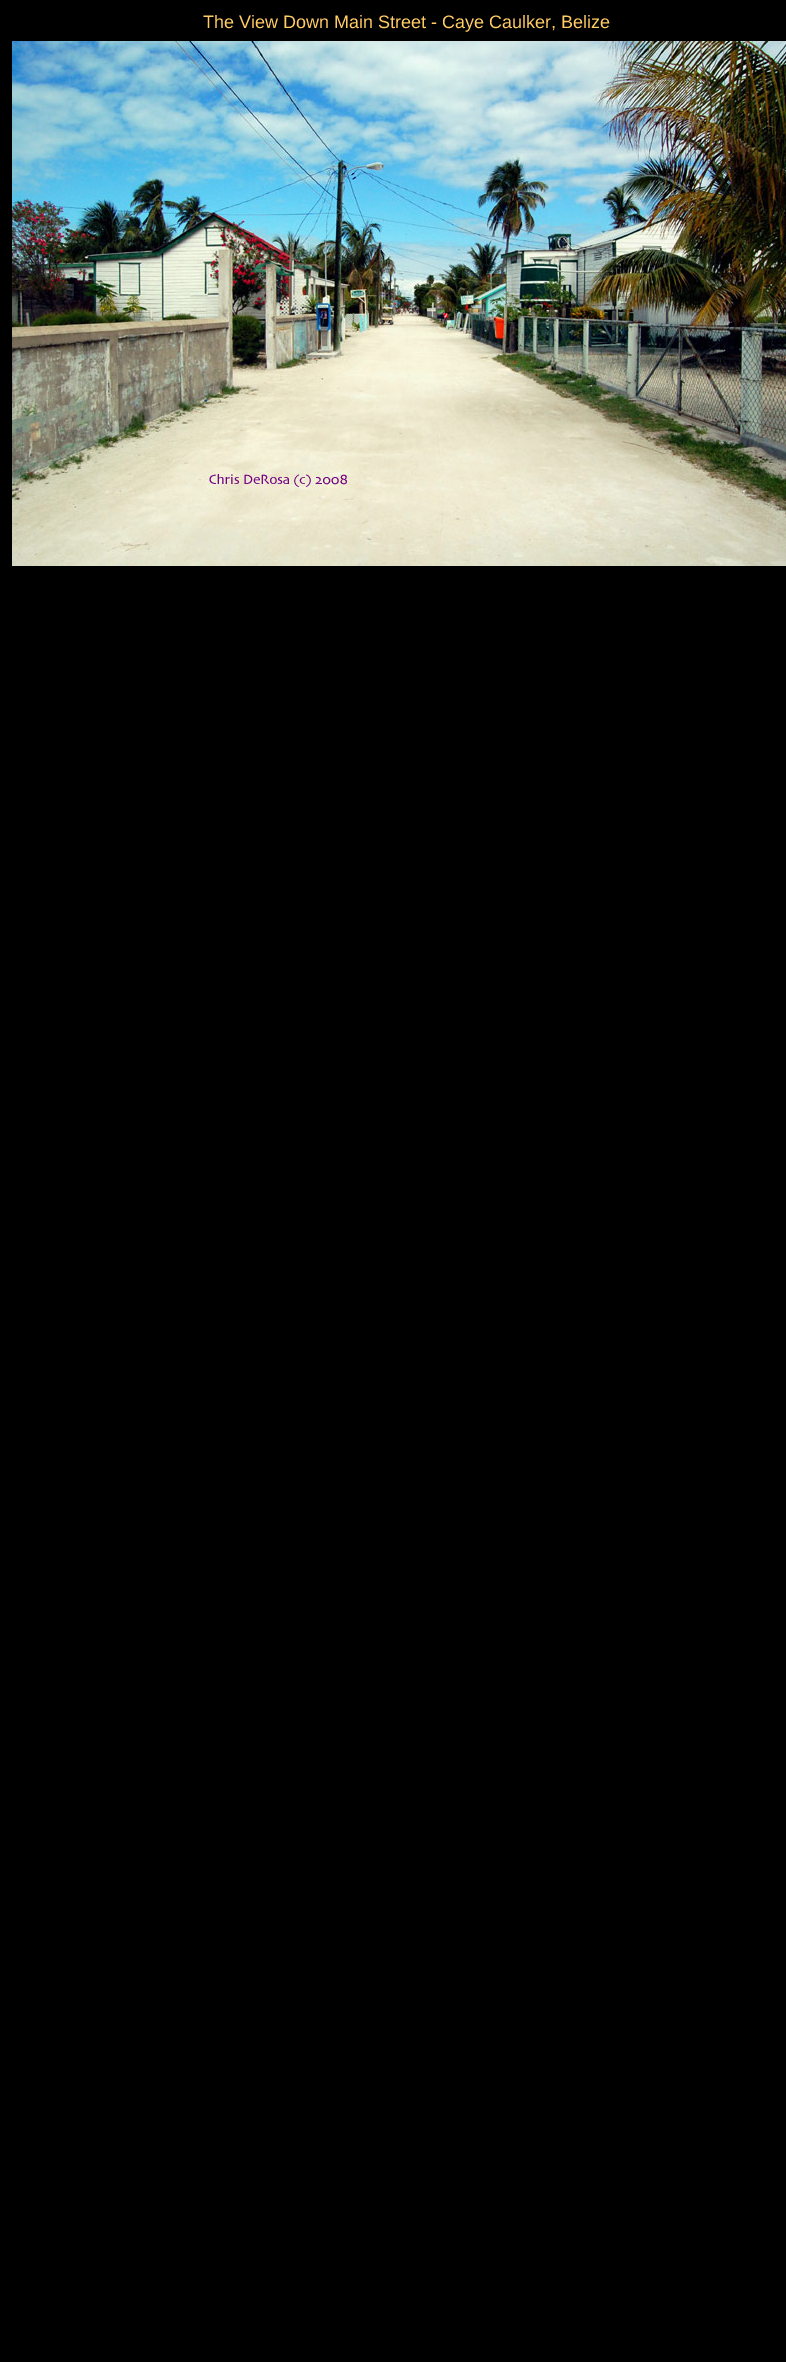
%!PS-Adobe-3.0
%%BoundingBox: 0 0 786 2362
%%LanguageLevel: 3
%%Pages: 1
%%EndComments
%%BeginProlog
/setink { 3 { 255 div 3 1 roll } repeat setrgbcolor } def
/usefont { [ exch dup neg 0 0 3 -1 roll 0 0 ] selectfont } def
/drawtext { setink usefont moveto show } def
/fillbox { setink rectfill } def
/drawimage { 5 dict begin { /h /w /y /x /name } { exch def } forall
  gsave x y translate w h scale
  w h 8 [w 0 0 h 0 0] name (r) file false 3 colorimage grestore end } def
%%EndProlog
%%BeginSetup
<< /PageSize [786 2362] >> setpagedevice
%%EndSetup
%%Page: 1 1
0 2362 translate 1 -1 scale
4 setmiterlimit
0 0 786 2362 0 0 0 fillbox
(The View Down Main Street - Caye Caulker, Belize) 203 28 /LiberationSans-Regular 18 255 204 102 drawtext
(assets/img1.rgb) 12 41 774 525 drawimage
showpage
%%EOF
